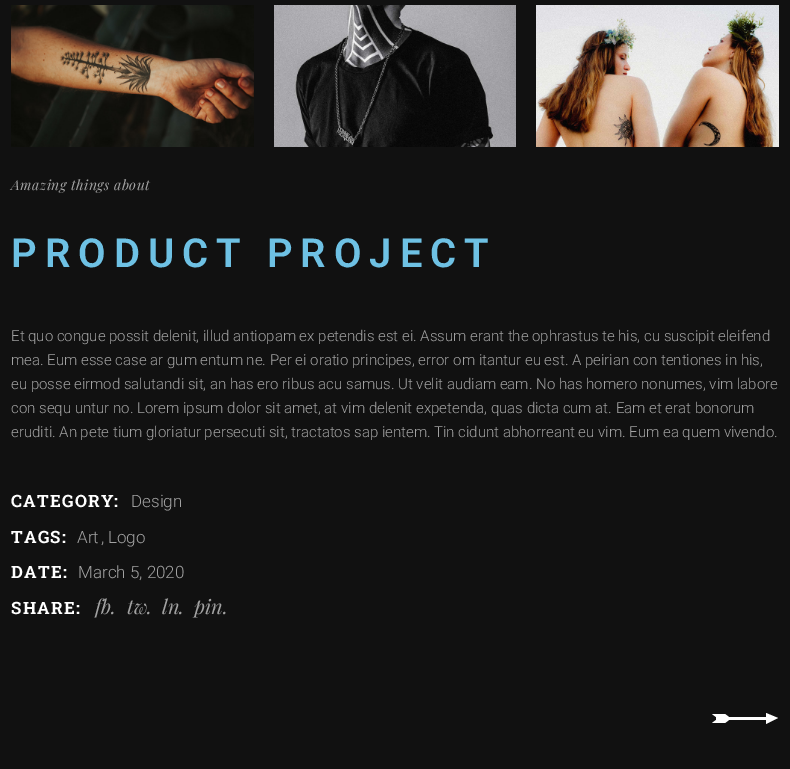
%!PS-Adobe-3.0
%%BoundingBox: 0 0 790 769
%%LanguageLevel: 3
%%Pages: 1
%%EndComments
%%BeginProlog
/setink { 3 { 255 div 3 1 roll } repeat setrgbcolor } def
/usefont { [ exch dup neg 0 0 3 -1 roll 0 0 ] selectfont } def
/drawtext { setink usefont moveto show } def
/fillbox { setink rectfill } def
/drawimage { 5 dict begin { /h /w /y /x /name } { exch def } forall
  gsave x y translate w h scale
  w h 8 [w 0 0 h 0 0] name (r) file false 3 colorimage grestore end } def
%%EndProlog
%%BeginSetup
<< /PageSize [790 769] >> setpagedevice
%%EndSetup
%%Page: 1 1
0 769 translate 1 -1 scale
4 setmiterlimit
0 0 790 769 17 17 17 fillbox
(assets/img1.rgb) 11 5 243 142 drawimage
(assets/img2.rgb) 274 5 242 142 drawimage
(assets/img3.rgb) 536 5 243 142 drawimage
/PlayfairDisplay-Italic 14 usefont
162 162 162 setink
11 190 moveto 0.5 0 (Amazing things about) ashow
/Roboto-SemiBold 40 usefont
110 193 228 setink
11 267 moveto 8 0 (PRODUCT PROJECT) ashow
(Et quo congue possit delenit, illud antiopam ex petendis est ei. Assum erant the ophrastus te his, cu suscipit eleifend) 11 341 /Roboto-Light 15 162 162 162 drawtext
(mea. Eum esse case ar gum entum ne. Per ei oratio principes, error om itantur eu est. A peirian con tentiones in his,) 11 365 /Roboto-Light 15 162 162 162 drawtext
(eu posse eirmod salutandi sit, an has ero ribus acu samus. Ut velit audiam eam. No has homero nonumes, vim labore) 11 389 /Roboto-Light 15 162 162 162 drawtext
(con sequ untur no. Lorem ipsum dolor sit amet, at vim delenit expetenda, quas dicta cum at. Eam et erat bonorum) 11 413 /Roboto-Light 15 162 162 162 drawtext
(eruditi. An pete tium gloriatur persecuti sit, tractatos sap ientem. Tin cidunt abhorreant eu vim. Eum ea quem vivendo.) 11 437 /Roboto-Light 15 162 162 162 drawtext
/RobotoSlab-Bold 17 usefont
255 255 255 setink
11 507 moveto 1.25 0 (CATEGORY:) ashow
(Design) 131 507 /Roboto-Light 17 162 162 162 drawtext
/RobotoSlab-Bold 17 usefont
255 255 255 setink
11 543 moveto 1.25 0 (TAGS:) ashow
(Art) 77 543 /Roboto-Light 17 162 162 162 drawtext
(,) 101 543 /Roboto-Light 17 162 162 162 drawtext
(Logo) 108 543 /Roboto-Light 17 162 162 162 drawtext
/RobotoSlab-Bold 17 usefont
255 255 255 setink
11 578 moveto 1.25 0 (DATE:) ashow
(March 5, 2020) 78 578 /Roboto-Light 17 162 162 162 drawtext
/RobotoSlab-Bold 17 usefont
255 255 255 setink
11 614 moveto 1.25 0 (SHARE:) ashow
(fb.) 95 614 /PlayfairDisplay-Italic 20 162 162 162 drawtext
(tw.) 127 614 /PlayfairDisplay-Italic 20 162 162 162 drawtext
(ln.) 162 614 /PlayfairDisplay-Italic 20 162 162 162 drawtext
(pin.) 194 614 /PlayfairDisplay-Italic 20 162 162 162 drawtext
255 255 255 setink
778 718 moveto 766 713 lineto 766 717 lineto 729 717 lineto 725 714 lineto 712 714 lineto 716 717 lineto 716 720 lineto 712 723 lineto 725 723 lineto 729 720 lineto 766 720 lineto 766 724 lineto closepath fill
showpage
%%EOF
